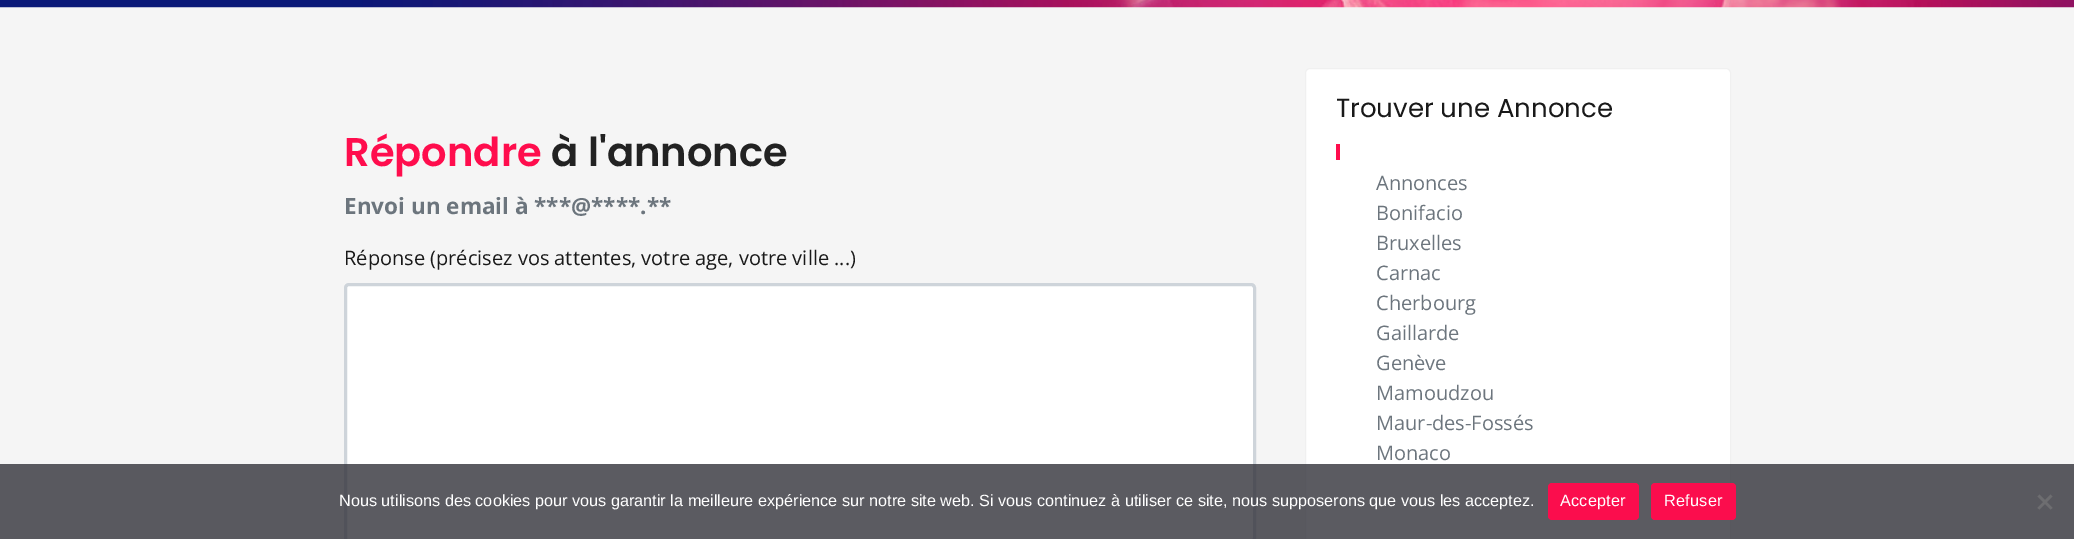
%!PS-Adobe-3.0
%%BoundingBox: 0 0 2074 539
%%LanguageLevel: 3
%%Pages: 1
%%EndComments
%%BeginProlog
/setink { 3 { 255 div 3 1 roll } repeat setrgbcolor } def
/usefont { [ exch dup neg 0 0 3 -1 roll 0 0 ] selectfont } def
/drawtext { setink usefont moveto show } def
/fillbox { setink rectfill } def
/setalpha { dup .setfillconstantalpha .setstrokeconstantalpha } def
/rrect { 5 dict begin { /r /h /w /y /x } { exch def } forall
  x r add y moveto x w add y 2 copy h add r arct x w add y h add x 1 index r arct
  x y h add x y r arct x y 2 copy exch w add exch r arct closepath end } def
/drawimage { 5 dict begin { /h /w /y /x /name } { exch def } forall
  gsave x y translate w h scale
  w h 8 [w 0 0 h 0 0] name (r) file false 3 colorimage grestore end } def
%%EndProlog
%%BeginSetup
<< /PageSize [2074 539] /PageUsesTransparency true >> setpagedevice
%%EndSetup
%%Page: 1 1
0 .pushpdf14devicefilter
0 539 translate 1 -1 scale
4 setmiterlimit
0 0 2074 539 245 245 245 fillbox
(assets/img1.rgb) 0 0 2074 8 drawimage
(Répondre) 344 166 /Poppins-SemiBold 40 255 13 77 drawtext
(à l'annonce) 551 166 /Poppins-SemiBold 40 34 34 34 drawtext
(Envoi un email à ***@****.**) 344 214 /OpenSans-Bold 22.5 108 117 125 drawtext
(Réponse \(précisez vos attentes, votre age, votre ville ...\)) 344 265 /OpenSans-Regular 20 25 25 25 drawtext
347 286 906 253 255 255 255 fillbox
206 212 218 setink
3 setlinewidth
345.5 284.5 909 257 3.5 rrect stroke
255 255 255 setink
1305.5 68.5 425 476 4.5 rrect gsave fill grestore
240 240 240 setink
1 setlinewidth
stroke
(Trouver une Annonce) 1336 117 /Poppins-Regular 26 25 25 25 drawtext
1336 144 4 16 255 13 77 fillbox
(Annonces) 1376 190 /OpenSans-Regular 20 108 117 125 drawtext
(Bonifacio) 1376 220 /OpenSans-Regular 20 108 117 125 drawtext
(Bruxelles) 1376 250 /OpenSans-Regular 20 108 117 125 drawtext
(Carnac) 1376 280 /OpenSans-Regular 20 108 117 125 drawtext
(Cherbourg) 1376 310 /OpenSans-Regular 20 108 117 125 drawtext
(Gaillarde) 1376 340 /OpenSans-Regular 20 108 117 125 drawtext
(Genève) 1376 370 /OpenSans-Regular 20 108 117 125 drawtext
(Mamoudzou) 1376 400 /OpenSans-Regular 20 108 117 125 drawtext
(Maur-des-Fossés) 1376 430 /OpenSans-Regular 20 108 117 125 drawtext
(Monaco) 1376 460 /OpenSans-Regular 20 108 117 125 drawtext
0.8 setalpha
0 464 2074 75 50 50 58 fillbox
1 setalpha
(Nous utilisons des cookies pour vous garantir la meilleure expérience sur notre site web. Si vous continuez à utiliser ce site, nous supposerons que vous les acceptez.) 339 506 /LiberationSans-Regular 16.25 255 255 255 drawtext
251 13 77 setink
1548 483 91 37 4 rrect fill
255 255 255 setink
1560 506 moveto 0.25 0 (Accepter) ashow
251 13 77 setink
1651 483 85 37 4 rrect fill
255 255 255 setink
1664 506 moveto 0.25 0 (Refuser) ashow
109 109 112 setink
2050.5 494.5 moveto 2052.5 496.5 lineto 2039.5 509.5 lineto 2037.5 508 lineto closepath fill
2037.5 496.5 moveto 2039.5 494.5 lineto 2052.5 508 lineto 2050.5 509.5 lineto closepath fill
.poppdf14devicefilter showpage
%%EOF
